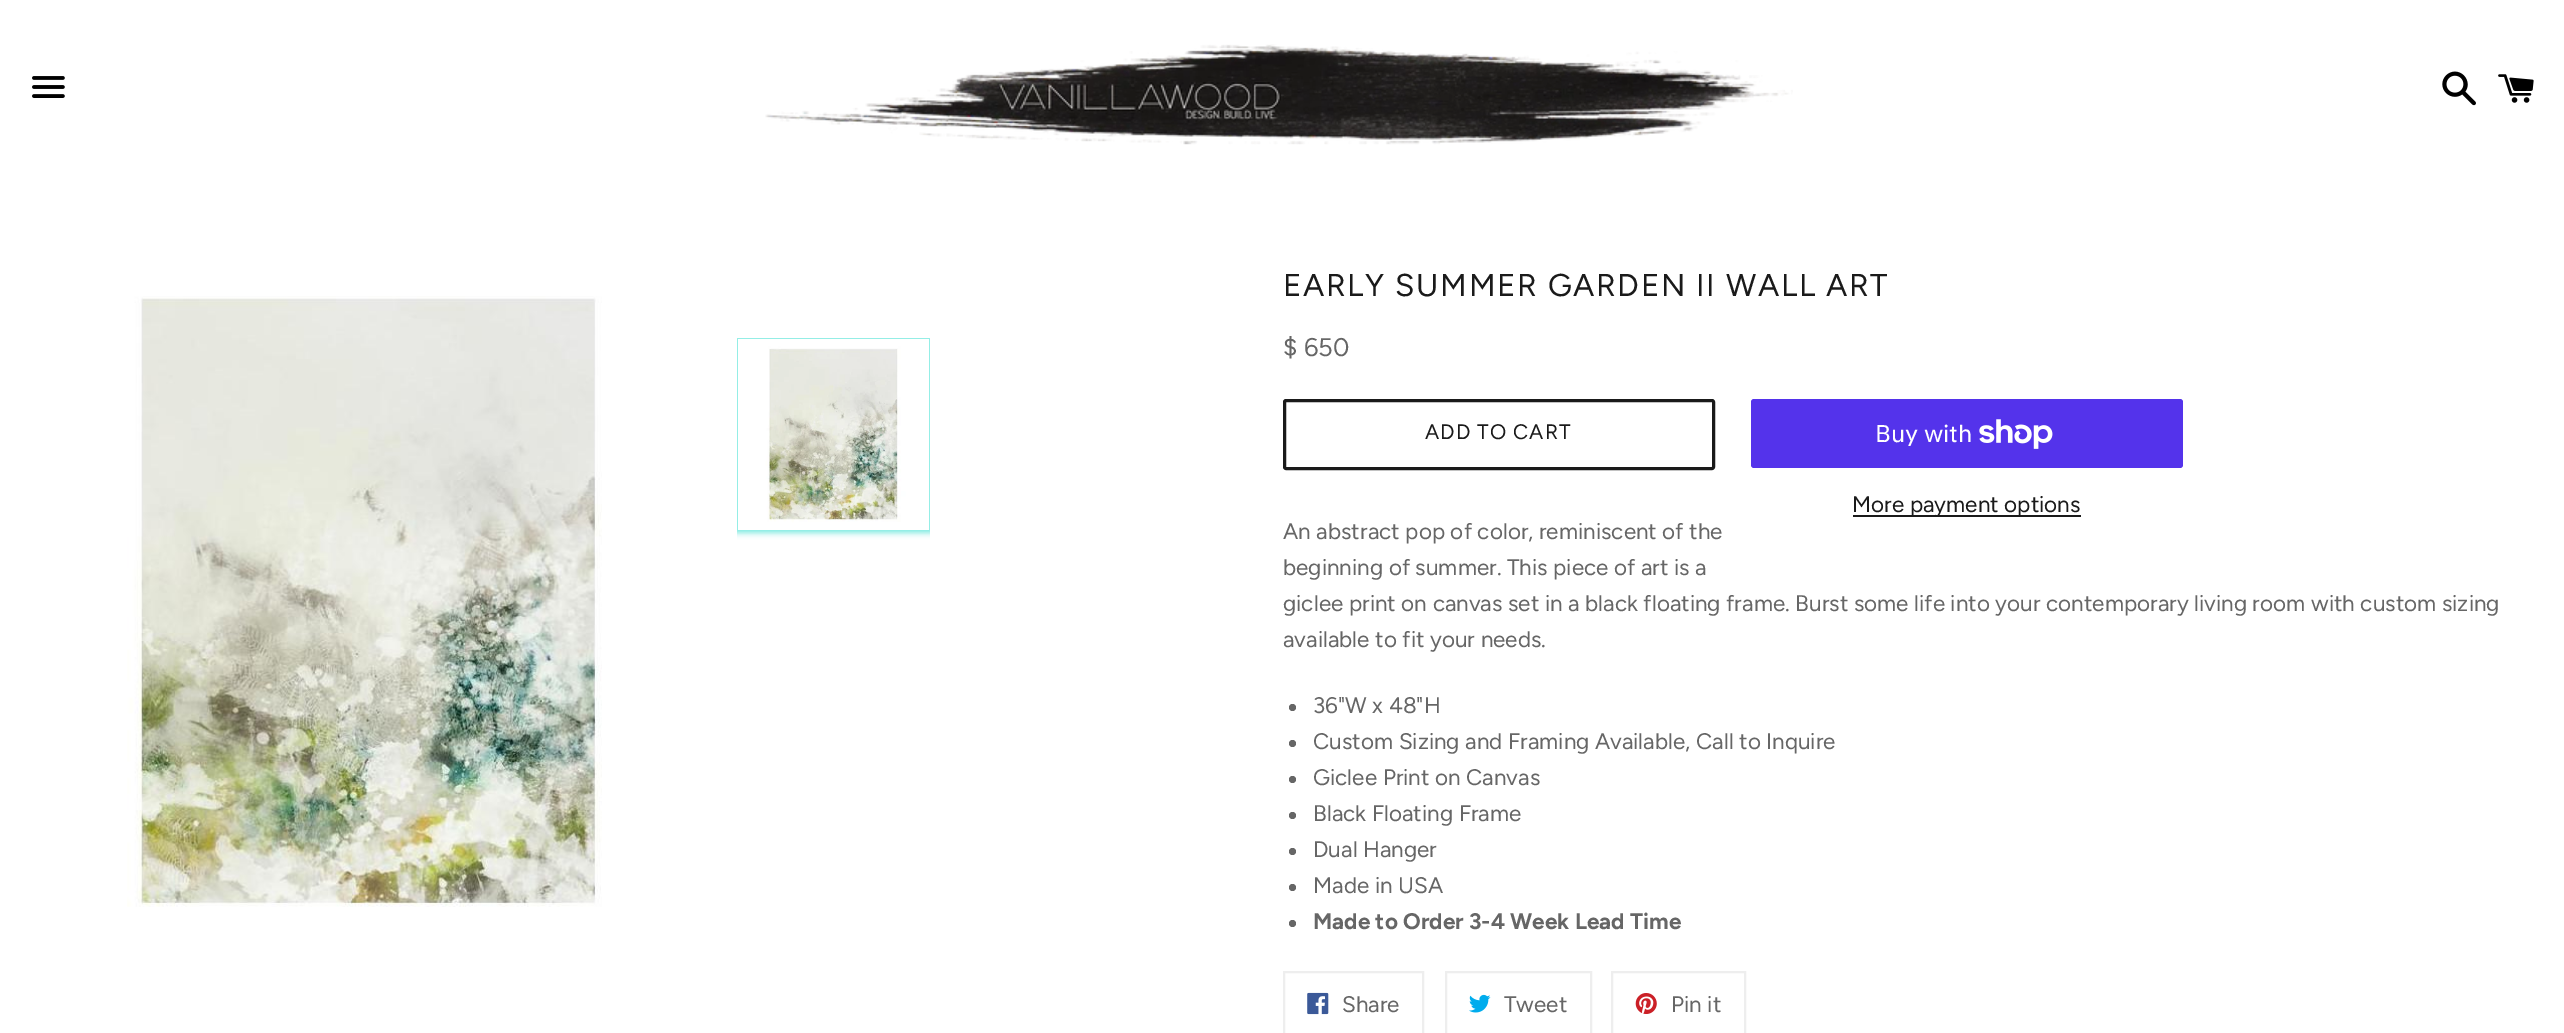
%!PS-Adobe-3.0
%%BoundingBox: 0 0 2564 1033
%%LanguageLevel: 3
%%Pages: 1
%%EndComments
%%BeginProlog
/setink { 3 { 255 div 3 1 roll } repeat setrgbcolor } def
/usefont { [ exch dup neg 0 0 3 -1 roll 0 0 ] selectfont } def
/drawtext { setink usefont moveto show } def
/fillbox { setink rectfill } def
/setalpha { dup .setfillconstantalpha .setstrokeconstantalpha } def
/disc { newpath 0 360 arc closepath } def
/rrect { 5 dict begin { /r /h /w /y /x } { exch def } forall
  x r add y moveto x w add y 2 copy h add r arct x w add y h add x 1 index r arct
  x y h add x y r arct x y 2 copy exch w add exch r arct closepath end } def
/softshadow { 12 dict begin { /a /b /q /h /w /y /x } { exch def } forall gsave /was 0 def
  9 -2 -9 { dup b mul 4 div /e exch def 1 sub .425 mul 2.718 exch exp 1 add a .99 .min exch div /now exch def
    1 1 now sub 1 was sub div sub setalpha /was now def
    w h .min e 2 mul add 0 gt { x e sub y e sub w e 2 mul add h e 2 mul add
      q e add b .6 mul add w h .min 2 div e add .min 0 .max rrect fill } if } for grestore end } def
/drawimage { 5 dict begin { /h /w /y /x /name } { exch def } forall
  gsave x y translate w h scale
  w h 8 [w 0 0 h 0 0] name (r) file false 3 colorimage grestore end } def
%%EndProlog
%%BeginSetup
<< /PageSize [2564 1033] /PageUsesTransparency true >> setpagedevice
%%EndSetup
%%Page: 1 1
0 .pushpdf14devicefilter
0 1033 translate 1 -1 scale
4 setmiterlimit
0 0 2564 1033 255 255 255 fillbox
(assets/img1.rgb) 32 76 33 22 drawimage
(assets/img2.rgb) 765 44 1028 101 drawimage
(assets/img3.rgb) 2442 71 34 35 drawimage
(assets/img4.rgb) 2498 74 36 29 drawimage
(assets/img5.rgb) 127 296 475 611 drawimage
gsave
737 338 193 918 rectclip
108 232 220 setink
735 336 197 197 0 3 0.9 softshadow
grestore
(assets/img6.rgb) 738 339 191 191 drawimage
/Figtree-Regular 31.5 usefont
26 26 26 setink
1283 296 moveto 1.6 0 (EARLY SUMMER GARDEN II WALL ART) ashow
($ 650) 1283 356 /Figtree-Regular 25.5 102 102 102 drawtext
26 26 26 setink
3 setlinewidth
1284.5 400.5 429 68 1.5 rrect stroke
/Figtree-Regular 21 usefont
1425 439 moveto 1 0 (ADD TO CART) ashow
84 51 235 setink
1751 399 432 69 3 rrect fill
(Buy with) 1875 442 /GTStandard-Regular 24 255 255 255 drawtext
(assets/img7.rgb) 1979 419 74 30 drawimage
1853 515 228 2 26 26 26 fillbox
(More payment options) 1852 512 /Figtree-Regular 22.5 26 26 26 drawtext
(An abstract pop of color, reminiscent of the) 1283 539 /Figtree-Regular 22.5 102 102 102 drawtext
(beginning of summer. This piece of art is a) 1283 575 /Figtree-Regular 22.5 102 102 102 drawtext
(giclee print on canvas set in a black floating frame. Burst some life into your contemporary living room with custom sizing) 1283 611 /Figtree-Regular 22.5 102 102 102 drawtext
(available to fit your needs.) 1283 647 /Figtree-Regular 22.5 102 102 102 drawtext
1292.5 707.5 3.5 disc fill
(36"W x 48"H) 1313 713 /Figtree-Regular 22.5 102 102 102 drawtext
1292.5 743.5 3.5 disc fill
(Custom Sizing and Framing Available, Call to Inquire) 1313 749 /Figtree-Regular 22.5 102 102 102 drawtext
1292.5 779.5 3.5 disc fill
(Giclee Print on Canvas) 1313 785 /Figtree-Regular 22.5 102 102 102 drawtext
1292.5 815.5 3.5 disc fill
(Black Floating Frame) 1313 821 /Figtree-Regular 22.5 102 102 102 drawtext
1292.5 851.5 3.5 disc fill
(Dual Hanger) 1313 857 /Figtree-Regular 22.5 102 102 102 drawtext
1292.5 887.5 3.5 disc fill
(Made in USA) 1313 893 /Figtree-Regular 22.5 102 102 102 drawtext
1292.5 923.5 3.5 disc fill
(Made to Order 3-4 Week Lead Time) 1313 929 /Figtree-Bold 22.5 102 102 102 drawtext
238 238 238 setink
2 setlinewidth
1284 972 139 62 rectstroke
(assets/img8.rgb) 1307 992 22 23 drawimage
(Share) 1342 1012 /Figtree-Regular 22.5 102 102 102 drawtext
238 238 238 setink
1446 972 145 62 rectstroke
(assets/img9.rgb) 1469 994 22 19 drawimage
(Tweet) 1504 1012 /Figtree-Regular 22.5 102 102 102 drawtext
238 238 238 setink
1612 972 133 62 rectstroke
(assets/img10.rgb) 1635 993 22 21 drawimage
(Pin it) 1671 1012 /Figtree-Regular 22.5 102 102 102 drawtext
.poppdf14devicefilter showpage
%%EOF
